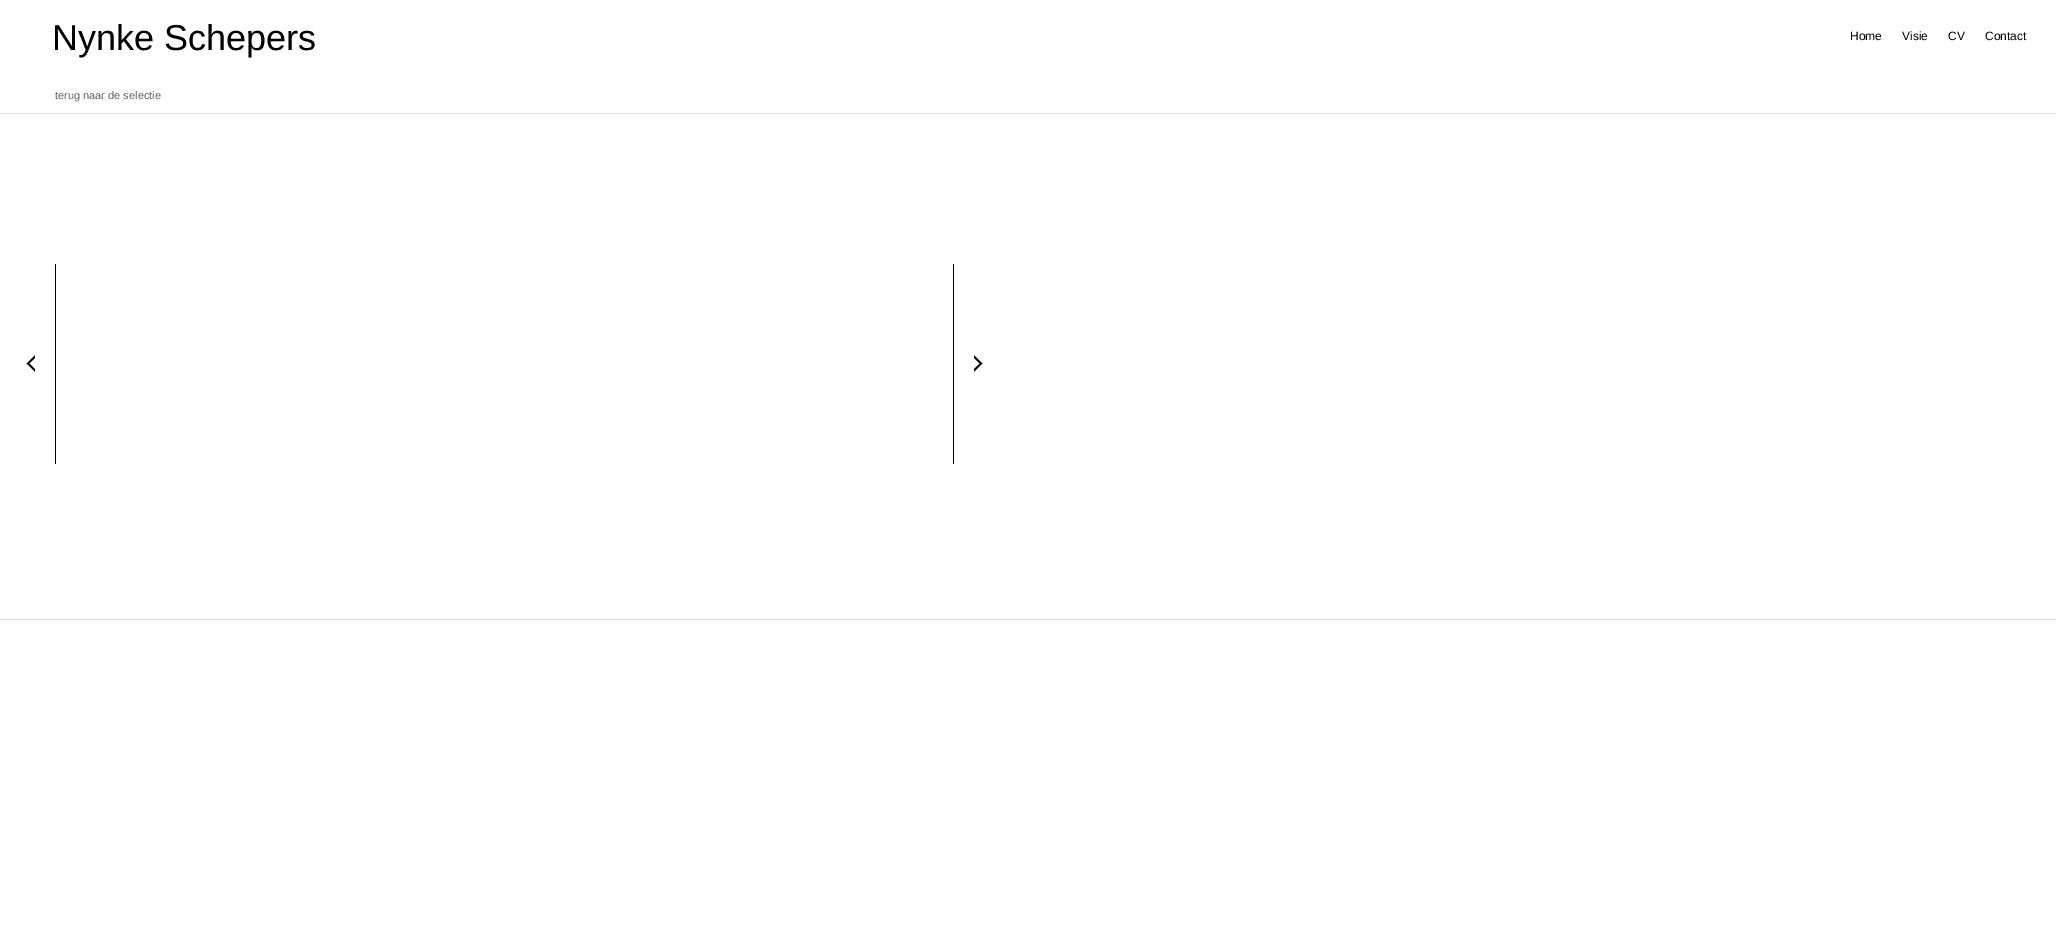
%!PS-Adobe-3.0
%%BoundingBox: 0 0 2056 943
%%LanguageLevel: 3
%%Pages: 1
%%EndComments
%%BeginProlog
/setink { 3 { 255 div 3 1 roll } repeat setrgbcolor } def
/usefont { [ exch dup neg 0 0 3 -1 roll 0 0 ] selectfont } def
/drawtext { setink usefont moveto show } def
/fillbox { setink rectfill } def
/drawimage { 5 dict begin { /h /w /y /x /name } { exch def } forall
  gsave x y translate w h scale
  w h 8 [w 0 0 h 0 0] name (r) file false 3 colorimage grestore end } def
%%EndProlog
%%BeginSetup
<< /PageSize [2056 943] >> setpagedevice
%%EndSetup
%%Page: 1 1
0 943 translate 1 -1 scale
4 setmiterlimit
0 0 2056 943 255 255 255 fillbox
(Nynke Schepers) 52 50 /LiberationSans-Regular 36 0 0 0 drawtext
(Home) 1850 40 /LiberationSans-Regular 12 0 0 0 drawtext
(Visie) 1902 40 /LiberationSans-Regular 12 0 0 0 drawtext
(CV) 1948 40 /LiberationSans-Regular 12 0 0 0 drawtext
(Contact) 1985 40 /LiberationSans-Regular 12 0 0 0 drawtext
(terug naar de selectie) 55 99 /LiberationSans-Regular 11 100 100 100 drawtext
0 619 2056 1 220 220 220 fillbox
0 113 2056 1 220 220 220 fillbox
(assets/img1.rgb) 26 355 9 17 drawimage
55 264 1 200 0 0 0 fillbox
(assets/img2.rgb) 974 355 9 17 drawimage
953 264 1 200 0 0 0 fillbox
showpage
%%EOF
